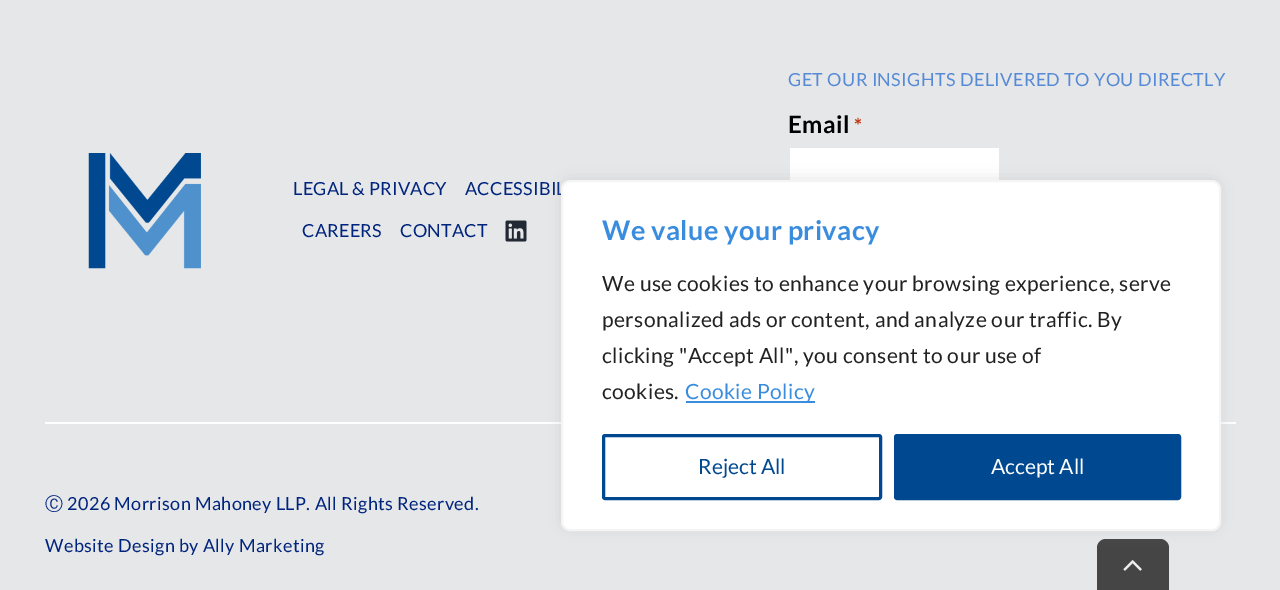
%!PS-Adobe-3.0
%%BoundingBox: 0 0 1280 590
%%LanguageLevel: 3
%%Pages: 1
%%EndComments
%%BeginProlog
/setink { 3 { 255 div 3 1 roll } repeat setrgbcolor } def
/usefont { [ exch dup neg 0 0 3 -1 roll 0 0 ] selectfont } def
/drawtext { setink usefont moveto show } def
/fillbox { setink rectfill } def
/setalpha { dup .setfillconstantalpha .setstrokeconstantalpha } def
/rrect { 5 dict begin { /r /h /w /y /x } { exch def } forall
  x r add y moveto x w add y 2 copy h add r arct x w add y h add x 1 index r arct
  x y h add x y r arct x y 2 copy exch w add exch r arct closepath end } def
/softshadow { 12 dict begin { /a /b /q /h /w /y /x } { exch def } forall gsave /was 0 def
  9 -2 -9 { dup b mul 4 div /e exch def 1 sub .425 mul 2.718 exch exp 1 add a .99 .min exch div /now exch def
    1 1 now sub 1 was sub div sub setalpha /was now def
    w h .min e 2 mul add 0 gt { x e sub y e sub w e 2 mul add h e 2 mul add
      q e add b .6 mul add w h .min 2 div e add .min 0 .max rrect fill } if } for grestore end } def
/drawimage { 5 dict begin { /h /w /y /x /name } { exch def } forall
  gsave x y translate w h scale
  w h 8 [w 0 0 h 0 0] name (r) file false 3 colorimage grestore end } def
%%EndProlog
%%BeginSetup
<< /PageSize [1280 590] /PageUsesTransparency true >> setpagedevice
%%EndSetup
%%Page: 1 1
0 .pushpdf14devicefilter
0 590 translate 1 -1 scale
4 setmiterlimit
0 0 1280 590 230 231 232 fillbox
/Lato-Regular 18 usefont
87 138 214 setink
788 86 moveto 0.4 0 (GET OUR INSIGHTS DELIVERED TO YOU DIRECTLY) ashow
/Lato-Bold 24 usefont
0 0 0 setink
788 133 moveto 0.5 0 (Email) ashow
/Lato-Bold 20 usefont
192 43 10 setink
854 133 moveto 0.5 0 (*) ashow
790 148 209 32 255 255 255 fillbox
(assets/img1.rgb) 88 153 113 116 drawimage
/Lato-Regular 18 usefont
0 36 125 setink
293 195 moveto 0.25 0 (LEGAL & PRIVACY) ashow
465 195 moveto 0.25 0 (ACCESSIBIL) ashow
302 237 moveto 0.25 0 (CAREERS) ashow
400 237 moveto 0.25 0 (CONTACT) ashow
(assets/img2.rgb) 505 220 22 22 drawimage
45 422 1191 2 255 255 255 fillbox
/WenQuanYiZenHei-Medium 18 usefont
0 36 125 setink
45 510 moveto 0.4 0 (Ⓒ) ashow
/Lato-Regular 18 usefont
67 510 moveto 0.4 0 (2026 Morrison Mahoney LLP. All Rights Reserved.) ashow
45 552 moveto 0.4 0 (Website Design by Ally Marketing) ashow
69 69 69 setink
1106 539 moveto 1160 539 lineto 1165 539 1169 543 1169 548 curveto 1169 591 lineto 1097 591 lineto 1097 548 lineto 1097 543 1101 539 1106 539 curveto closepath fill
172 171 171 setink
561 179 660 351 9 7.5 0.3 softshadow
255 255 255 setink
562 181 658 349 8 rrect gsave fill grestore
244 244 244 setink
2 setlinewidth
stroke
/Lato-Bold 27 usefont
58 141 222 setink
602 240 moveto 0.4 0 (We value your privacy) ashow
/Lato-Regular 21 usefont
33 33 33 setink
602 291 moveto 0.4 0 (We use cookies to enhance your browsing experience, serve) ashow
602 327 moveto 0.4 0 (personalized ads or content, and analyze our traffic. By) ashow
602 363 moveto 0.4 0 (clicking "Accept All", you consent to our use of) ashow
602 399 moveto 0.4 0 (cookies.) ashow
686 401 129 2 58 141 222 fillbox
685 399 moveto 0.4 0 (Cookie Policy) ashow
0 73 144 setink
3 setlinewidth
603.5 435.5 277 63 1.5 rrect stroke
(Reject All) 698 474 /Lato-Regular 21 0 73 144 drawtext
895.5 435.5 284 63 1.5 rrect gsave fill grestore
stroke
(Accept All) 991 474 /Lato-Regular 21 255 255 255 drawtext
(assets/img3.rgb) 1123 560 19 11 drawimage
.poppdf14devicefilter showpage
%%EOF
